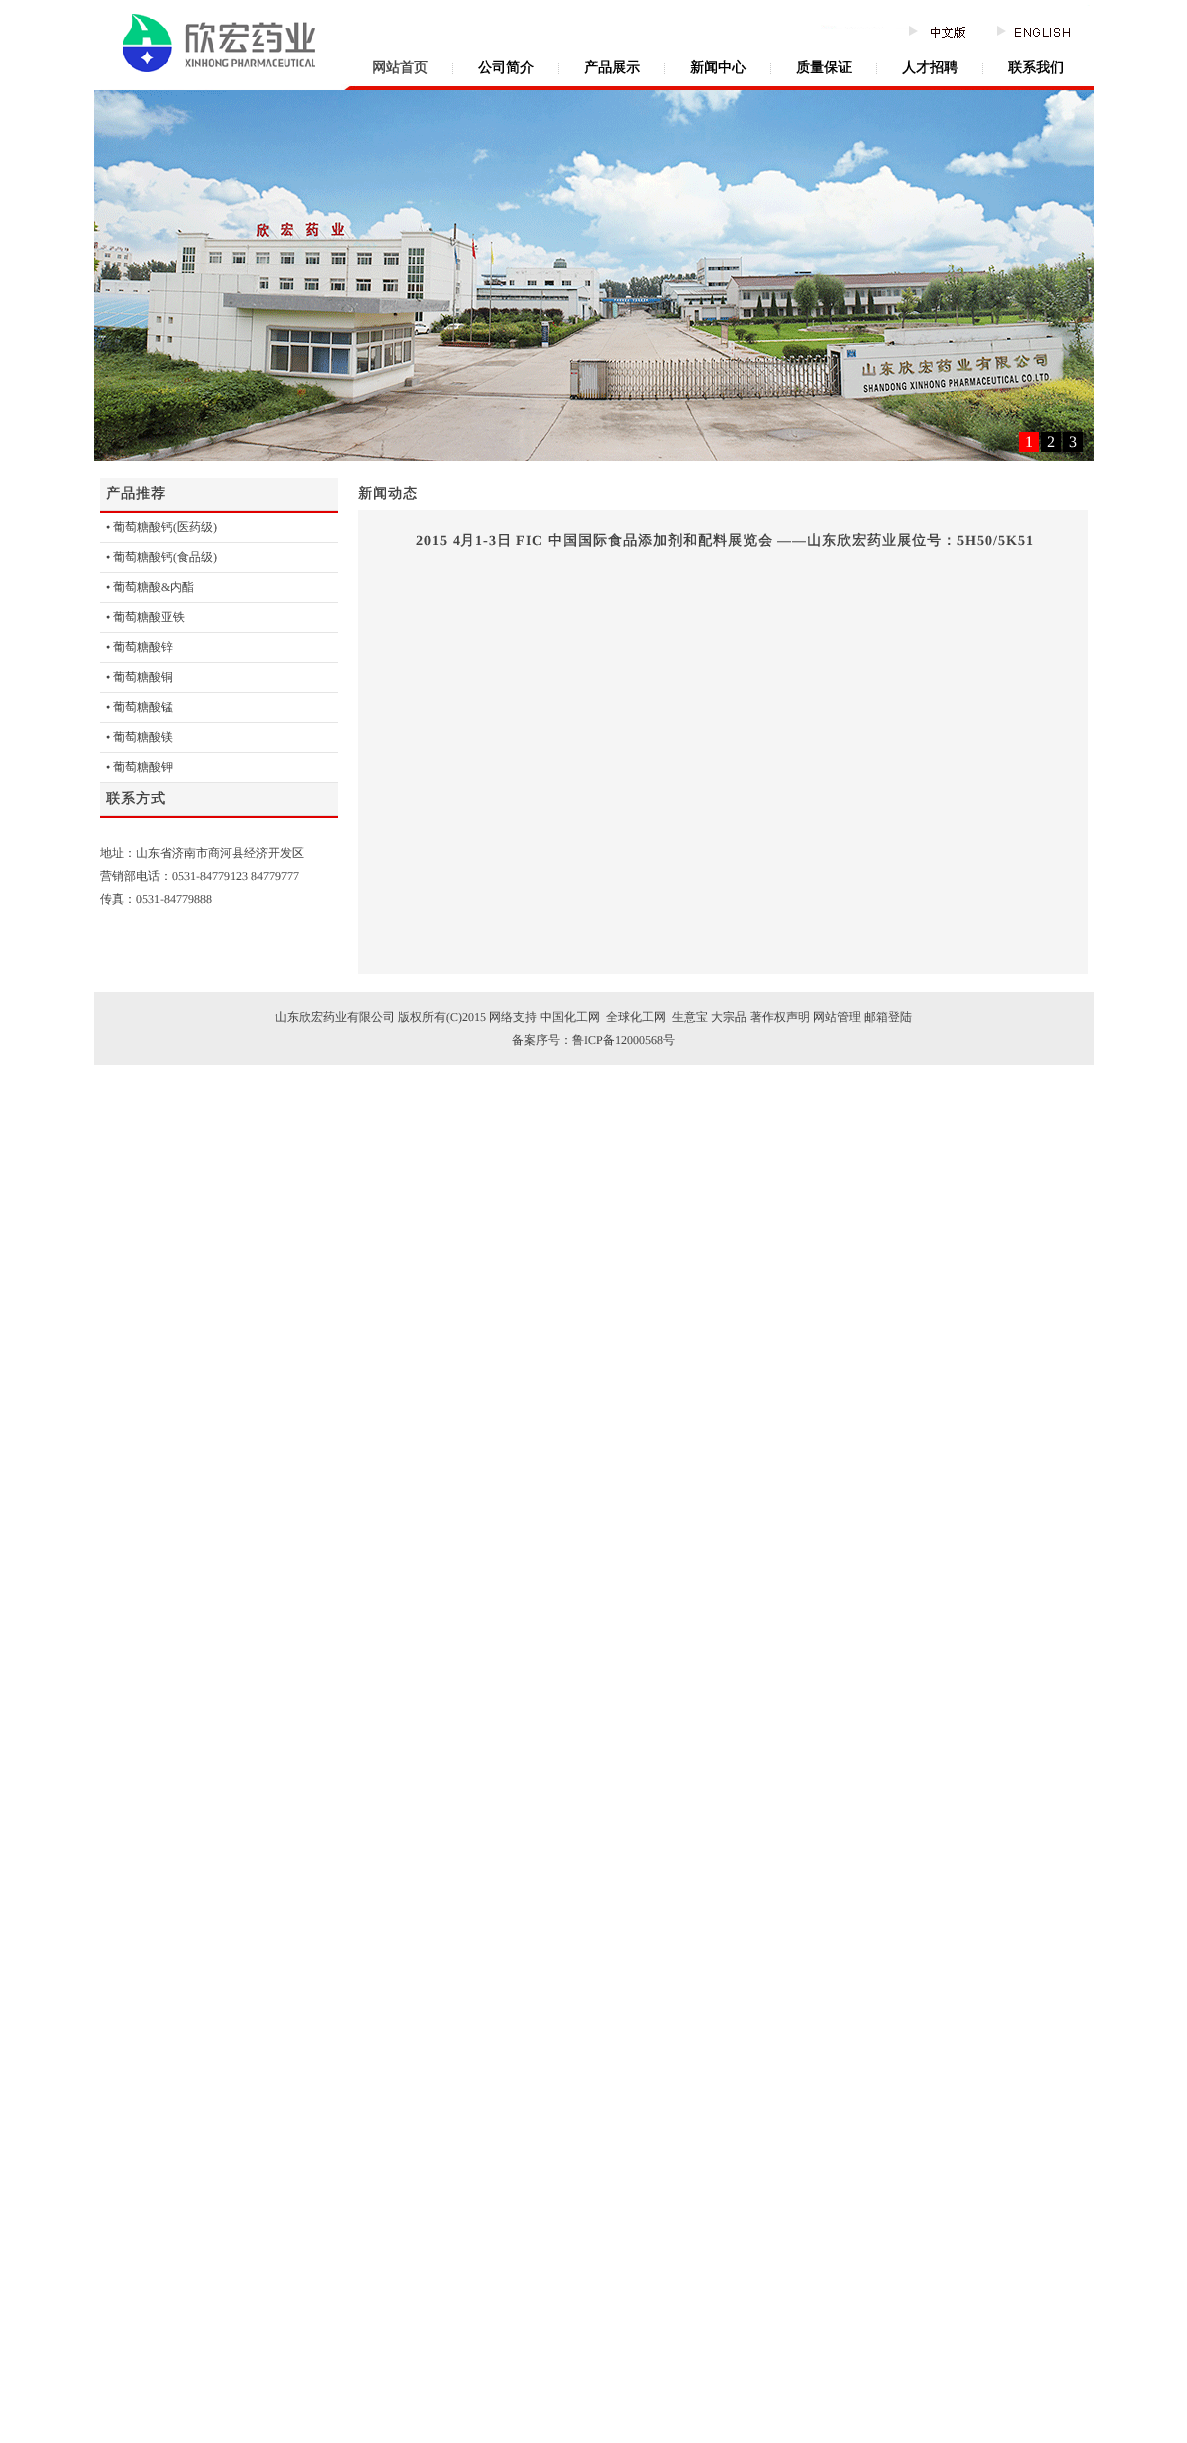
%!PS-Adobe-3.0
%%BoundingBox: 0 0 1187 2443
%%LanguageLevel: 3
%%Pages: 1
%%EndComments
%%BeginProlog
/setink { 3 { 255 div 3 1 roll } repeat setrgbcolor } def
/usefont { [ exch dup neg 0 0 3 -1 roll 0 0 ] selectfont } def
/drawtext { setink usefont moveto show } def
/fillbox { setink rectfill } def
/drawimage { 5 dict begin { /h /w /y /x /name } { exch def } forall
  gsave x y translate w h scale
  w h 8 [w 0 0 h 0 0] name (r) file false 3 colorimage grestore end } def
%%EndProlog
%%BeginSetup
<< /PageSize [1187 2443] >> setpagedevice
%%EndSetup
%%Page: 1 1
0 2443 translate 1 -1 scale
4 setmiterlimit
0 0 1187 2443 255 255 255 fillbox
(assets/img1.rgb) 123 14 192 58 drawimage
(assets/img2.rgb) 821 5 269 33 drawimage
(网站首页) 372 72 /WenQuanYiZenHei-Bold 14 68 68 68 drawtext
(assets/img3.rgb) 452 63 1 11 drawimage
(公司简介) 478 72 /WenQuanYiZenHei-Bold 14 0 0 0 drawtext
(assets/img3.rgb) 558 63 1 11 drawimage
(产品展示) 584 72 /WenQuanYiZenHei-Bold 14 0 0 0 drawtext
(assets/img3.rgb) 664 63 1 11 drawimage
(新闻中心) 690 72 /WenQuanYiZenHei-Bold 14 0 0 0 drawtext
(assets/img3.rgb) 770 63 1 11 drawimage
(质量保证) 796 72 /WenQuanYiZenHei-Bold 14 0 0 0 drawtext
(assets/img3.rgb) 876 63 1 11 drawimage
(人才招聘) 902 72 /WenQuanYiZenHei-Bold 14 0 0 0 drawtext
(assets/img3.rgb) 982 63 1 11 drawimage
(联系我们) 1008 72 /WenQuanYiZenHei-Bold 14 0 0 0 drawtext
(assets/img4.rgb) 101 84 993 6 drawimage
(assets/img5.rgb) 94 90 1000 371 drawimage
1019 432 20 20 255 0 0 fillbox
(1) 1025 447 /LiberationSerif-Regular 16 255 255 255 drawtext
1041 432 20 20 0 0 0 fillbox
(2) 1047 447 /LiberationSerif-Regular 16 255 255 255 drawtext
1063 432 20 20 0 0 0 fillbox
(3) 1069 447 /LiberationSerif-Regular 16 255 255 255 drawtext
100 478 238 32 245 245 245 fillbox
/WenQuanYiZenHei-Bold 14 usefont
68 68 68 setink
106 498 moveto 1 0 (产品推荐) ashow
100 510 238 1 223 223 223 fillbox
100 511 238 2 224 0 0 fillbox
(•) 106 531 /LiberationSerif-Regular 12 68 68 68 drawtext
(葡萄糖酸钙) 113 531 /WenQuanYiZenHei-Medium 12 68 68 68 drawtext
(\() 173 531 /LiberationSerif-Regular 12 68 68 68 drawtext
(医药级) 177 531 /WenQuanYiZenHei-Medium 12 68 68 68 drawtext
(\)) 213 531 /LiberationSerif-Regular 12 68 68 68 drawtext
100 542 238 1 229 229 229 fillbox
(•) 106 561 /LiberationSerif-Regular 12 68 68 68 drawtext
(葡萄糖酸钙) 113 561 /WenQuanYiZenHei-Medium 12 68 68 68 drawtext
(\() 173 561 /LiberationSerif-Regular 12 68 68 68 drawtext
(食品级) 177 561 /WenQuanYiZenHei-Medium 12 68 68 68 drawtext
(\)) 213 561 /LiberationSerif-Regular 12 68 68 68 drawtext
100 572 238 1 229 229 229 fillbox
(•) 106 591 /LiberationSerif-Regular 12 68 68 68 drawtext
(葡萄糖酸) 113 591 /WenQuanYiZenHei-Medium 12 68 68 68 drawtext
(&) 161 591 /LiberationSerif-Regular 12 68 68 68 drawtext
(内酯) 170 591 /WenQuanYiZenHei-Medium 12 68 68 68 drawtext
100 602 238 1 229 229 229 fillbox
(•) 106 621 /LiberationSerif-Regular 12 68 68 68 drawtext
(葡萄糖酸亚铁) 113 621 /WenQuanYiZenHei-Medium 12 68 68 68 drawtext
100 632 238 1 229 229 229 fillbox
(•) 106 651 /LiberationSerif-Regular 12 68 68 68 drawtext
(葡萄糖酸锌) 113 651 /WenQuanYiZenHei-Medium 12 68 68 68 drawtext
100 662 238 1 229 229 229 fillbox
(•) 106 681 /LiberationSerif-Regular 12 68 68 68 drawtext
(葡萄糖酸铜) 113 681 /WenQuanYiZenHei-Medium 12 68 68 68 drawtext
100 692 238 1 229 229 229 fillbox
(•) 106 711 /LiberationSerif-Regular 12 68 68 68 drawtext
(葡萄糖酸锰) 113 711 /WenQuanYiZenHei-Medium 12 68 68 68 drawtext
100 722 238 1 229 229 229 fillbox
(•) 106 741 /LiberationSerif-Regular 12 68 68 68 drawtext
(葡萄糖酸镁) 113 741 /WenQuanYiZenHei-Medium 12 68 68 68 drawtext
100 752 238 1 229 229 229 fillbox
(•) 106 771 /LiberationSerif-Regular 12 68 68 68 drawtext
(葡萄糖酸钾) 113 771 /WenQuanYiZenHei-Medium 12 68 68 68 drawtext
100 782 238 1 229 229 229 fillbox
100 783 238 32 245 245 245 fillbox
/WenQuanYiZenHei-Bold 14 usefont
68 68 68 setink
106 803 moveto 1 0 (联系方式) ashow
100 815 238 1 223 223 223 fillbox
100 816 238 2 224 0 0 fillbox
(地址：山东省济南市商河县经济开发区) 100 857 /WenQuanYiZenHei-Medium 12 68 68 68 drawtext
(营销部电话：) 100 880 /WenQuanYiZenHei-Medium 12 68 68 68 drawtext
(0531-84779123 84779777) 172 880 /LiberationSerif-Regular 12 68 68 68 drawtext
(传真：) 100 903 /WenQuanYiZenHei-Medium 12 68 68 68 drawtext
(0531-84779888) 136 903 /LiberationSerif-Regular 12 68 68 68 drawtext
/WenQuanYiZenHei-Bold 14 usefont
358 498 moveto 1 0 (新闻动态) ashow
358 510 730 464 245 245 245 fillbox
/LiberationSerif-Bold 14 usefont
68 68 68 setink
416 545 moveto 1 0 (2015 4) ashow
/WenQuanYiZenHei-Bold 14 usefont
460 545 moveto 1 0 (月) ashow
/LiberationSerif-Bold 14 usefont
475 545 moveto 1 0 (1-3) ashow
/WenQuanYiZenHei-Bold 14 usefont
497 545 moveto 1 0 (日) ashow
/LiberationSerif-Bold 14 usefont
516 545 moveto 1 0 (FIC) ashow
/WenQuanYiZenHei-Bold 14 usefont
548 545 moveto 1 0 (中国国际食品添加剂和配料展览会) ashow
/LiberationSerif-Bold 14 usefont
777 545 moveto 1 0 (——) ashow
/WenQuanYiZenHei-Bold 14 usefont
807 545 moveto 1 0 (山东欣宏药业展位号：) ashow
/LiberationSerif-Bold 14 usefont
957 545 moveto 1 0 (5H50/5K51) ashow
94 992 1000 73 236 236 236 fillbox
(山东欣宏药业有限公司) 275 1021 /WenQuanYiZenHei-Medium 12 68 68 68 drawtext
(版权所有) 398 1021 /WenQuanYiZenHei-Medium 12 68 68 68 drawtext
(\(C\)2015) 446 1021 /LiberationSerif-Regular 12 68 68 68 drawtext
(网络支持) 489 1021 /WenQuanYiZenHei-Medium 12 68 68 68 drawtext
(中国化工网) 540 1021 /WenQuanYiZenHei-Medium 12 68 68 68 drawtext
(全球化工网) 606 1021 /WenQuanYiZenHei-Medium 12 68 68 68 drawtext
(生意宝) 672 1021 /WenQuanYiZenHei-Medium 12 68 68 68 drawtext
(大宗品) 711 1021 /WenQuanYiZenHei-Medium 12 68 68 68 drawtext
(著作权声明) 750 1021 /WenQuanYiZenHei-Medium 12 68 68 68 drawtext
(网站管理) 813 1021 /WenQuanYiZenHei-Medium 12 68 68 68 drawtext
(邮箱登陆) 864 1021 /WenQuanYiZenHei-Medium 12 68 68 68 drawtext
(备案序号：鲁) 512 1044 /WenQuanYiZenHei-Medium 12 68 68 68 drawtext
(ICP) 584 1044 /LiberationSerif-Regular 12 68 68 68 drawtext
(备) 603 1044 /WenQuanYiZenHei-Medium 12 68 68 68 drawtext
(12000568) 615 1044 /LiberationSerif-Regular 12 68 68 68 drawtext
(号) 663 1044 /WenQuanYiZenHei-Medium 12 68 68 68 drawtext
showpage
%%EOF
